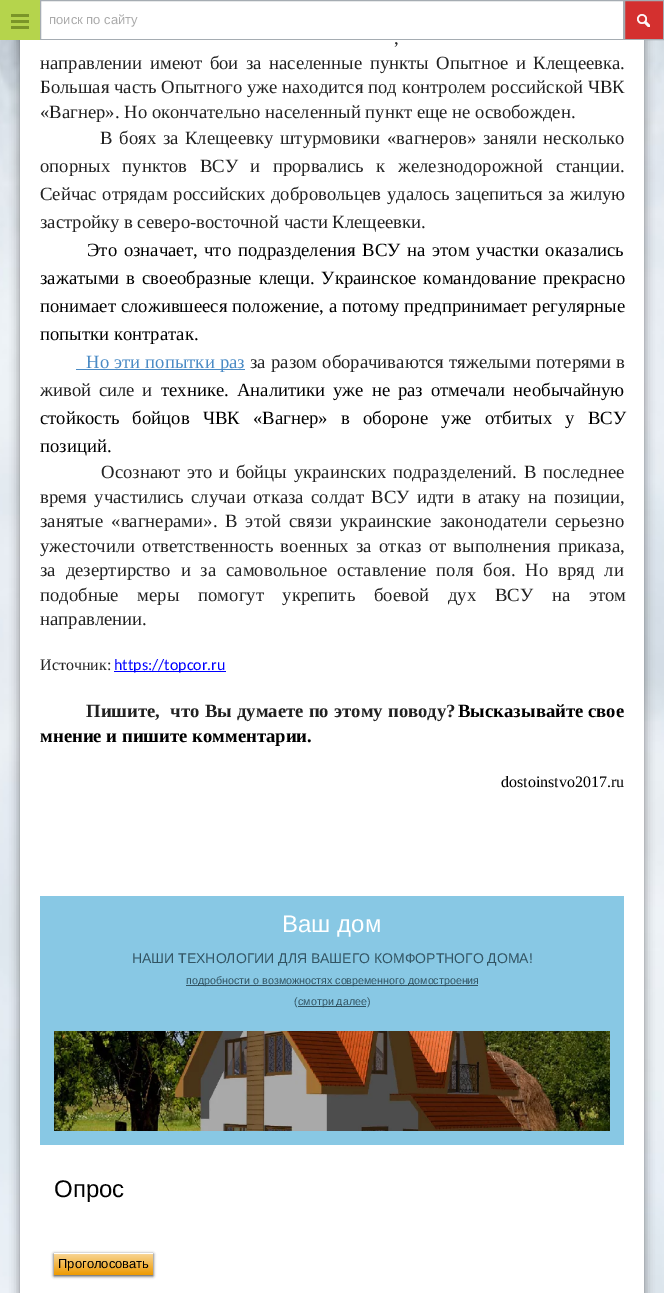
%!PS-Adobe-3.0
%%BoundingBox: 0 0 664 1293
%%LanguageLevel: 3
%%Pages: 1
%%EndComments
%%BeginProlog
/setink { 3 { 255 div 3 1 roll } repeat setrgbcolor } def
/usefont { [ exch dup neg 0 0 3 -1 roll 0 0 ] selectfont } def
/drawtext { setink usefont moveto show } def
/fillbox { setink rectfill } def
/setalpha { dup .setfillconstantalpha .setstrokeconstantalpha } def
/rrect { 5 dict begin { /r /h /w /y /x } { exch def } forall
  x r add y moveto x w add y 2 copy h add r arct x w add y h add x 1 index r arct
  x y h add x y r arct x y 2 copy exch w add exch r arct closepath end } def
/softshadow { 12 dict begin { /a /b /q /h /w /y /x } { exch def } forall gsave /was 0 def
  9 -2 -9 { dup b mul 4 div /e exch def 1 sub .425 mul 2.718 exch exp 1 add a .99 .min exch div /now exch def
    1 1 now sub 1 was sub div sub setalpha /was now def
    w h .min e 2 mul add 0 gt { x e sub y e sub w e 2 mul add h e 2 mul add
      q e add b .6 mul add w h .min 2 div e add .min 0 .max rrect fill } if } for grestore end } def
/drawimage { 5 dict begin { /h /w /y /x /name } { exch def } forall
  gsave x y translate w h scale
  w h 8 [w 0 0 h 0 0] name (r) file false 3 colorimage grestore end } def
%%EndProlog
%%BeginSetup
<< /PageSize [664 1293] /PageUsesTransparency true >> setpagedevice
%%EndSetup
%%Page: 1 1
0 .pushpdf14devicefilter
0 1293 translate 1 -1 scale
4 setmiterlimit
0 0 664 1293 255 255 255 fillbox
(assets/img2.rgb) 0 40 664 1253 drawimage
0 0 0 setink
20 -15 624 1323 0 5 0.45 softshadow
0 0 40 40 181 212 76 fillbox
11 14 18 3 123 149 40 fillbox
11 20 18 3 123 149 40 fillbox
11 26 18 3 123 149 40 fillbox
255 255 255 setink
40.5 0.5 moveto 623.5 0.5 lineto 623.5 39.5 lineto 40.5 39.5 lineto closepath gsave fill grestore
165 172 178 setink
stroke
(поиск по сайту) 49 24 /LiberationSans-Regular 13 171 171 171 drawtext
625 1 38 38 212 48 47 fillbox
(assets/img1.rgb) 637 14 13 13 drawimage
165 172 178 setink
624.5 0.5 39 39 rectstroke
20 40 624 1253 255 255 255 fillbox
/LiberationSerif-Regular 18.7 usefont
34 34 34 setink
394 44 moveto 4 0 32 (,) widthshow
40 69 moveto 2.75 0 32 (направлении имеют бои за населенные пункты Опытное и Клещеевка.) widthshow
(Большая часть Опытного уже находится под контролем российской ЧВК) 40 93 /LiberationSerif-Regular 18.7 34 34 34 drawtext
(«Вагнер». Но окончательно населенный пункт еще не освобожден.) 40 118 /LiberationSerif-Regular 18.7 34 34 34 drawtext
100 144 moveto 2 0 32 (В боях за Клещеевку штурмовики «вагнеров» заняли несколько) widthshow
40 172 moveto 7.75 0 32 (опорных пунктов ВСУ и прорвались к железнодорожной станции.) widthshow
40 200 moveto 1 0 32 (Сейчас отрядам российских добровольцев удалось зацепиться за жилую) widthshow
(застройку в северо-восточной части Клещеевки.) 40 228 /LiberationSerif-Regular 18.7 34 34 34 drawtext
0 0 0 setink
87 256 moveto 2 0 32 (Это означает, что подразделения ВСУ на этом участки оказались) widthshow
40 284 moveto 2.25 0 32 (зажатыми в своеобразные клещи. Украинское командование прекрасно) widthshow
(понимает сложившееся положение, а потому предпринимает регулярные) 40 312 /LiberationSerif-Regular 18.7 0 0 0 drawtext
(попытки контратак.) 40 340 /LiberationSerif-Regular 18.7 0 0 0 drawtext
76 369 169 1 75 139 197 fillbox
86 368 moveto 0.5 0 32 (Но эти попытки раз) widthshow
34 34 34 setink
250 368 moveto 0.5 0 32 (за разом оборачиваются тяжелыми потерями в) widthshow
40 396 moveto 3 0 32 (живой силе и) widthshow
0 0 0 setink
161 396 moveto 3.25 0 32 (технике. Аналитики уже не раз отмечали необычайную) widthshow
40 424 moveto 8.5 0 32 (стойкость бойцов ЧВК «Вагнер» в обороне уже отбитых у ВСУ) widthshow
(позиций.) 40 452 /LiberationSerif-Regular 18.7 0 0 0 drawtext
34 34 34 setink
101 478 moveto 2 0 32 (Осознают это и бойцы украинских подразделений. В последнее) widthshow
40 503 moveto 2.6 0 32 (время участились случаи отказа солдат ВСУ идти в атаку на позиции,) widthshow
40 527 moveto 3.25 0 32 (занятые «вагнерами». В этой связи украинские законодатели серьезно) widthshow
40 552 moveto 2.6 0 32 (ужесточили ответственность военных за отказ от выполнения приказа,) widthshow
40 576 moveto 5.25 0 32 (за дезертирство и за самовольное оставление поля боя. Но вряд ли) widthshow
40 601 moveto 14 0 32 (подобные меры помогут укрепить боевой дух ВСУ на этом) widthshow
(направлении.) 40 625 /LiberationSerif-Regular 18.7 34 34 34 drawtext
(Источник:) 40 670 /LiberationSerif-Regular 16 34 34 34 drawtext
114 671 112 1 0 0 255 fillbox
(https://topcor.ru) 114 670 /Carlito-Regular 16 0 0 255 drawtext
/LiberationSerif-Bold 18.7 usefont
34 34 34 setink
86 717 moveto 0.5 0 32 (Пишите,  что Вы думаете по этому поводу?) widthshow
(Высказывайте свое) 458 717 /LiberationSerif-Bold 18.7 0 0 0 drawtext
(мнение и пишите комментарии.) 40 742 /LiberationSerif-Bold 18.7 0 0 0 drawtext
(dostoinstvo2017.ru) 501 787 /LiberationSerif-Regular 16 0 0 0 drawtext
40 896 584 249 136 200 228 fillbox
(Ваш дом) 282 932 /LiberationSans-Regular 24 255 255 255 drawtext
(НАШИ ТЕХНОЛОГИИ ДЛЯ ВАШЕГО КОМФОРТНОГО ДОМА!) 132 963 /LiberationSans-Regular 14 50 84 99 drawtext
186 985 292 1 50 84 99 fillbox
(подробности о возможностях современного домостроения) 186 984 /LiberationSans-Regular 10.7 50 84 99 drawtext
(\() 294 1005 /LiberationSans-Regular 10.7 50 84 99 drawtext
298 1006 68 1 50 84 99 fillbox
(смотри далее\)) 298 1005 /LiberationSans-Regular 10.7 50 84 99 drawtext
(assets/img3.rgb) 54 1031 556 100 drawimage
(Опрос) 54 1197 /LiberationSans-Regular 24 0 0 0 drawtext
54 1254 99 22 0 1.5 0.75 softshadow
gsave 54 1254 moveto 153 1254 lineto 153 1275 lineto 54 1275 lineto closepath clip newpath
<< /ShadingType 2 /ColorSpace /DeviceRGB /Coords [104 1275 104 1253] /Extend [true true] /Function << /FunctionType 2 /Domain [0 1] /C0 [0.933 0.604 0] /C1 [0.973 0.843 0.6] /N 1 >> >> shfill grestore
54 1253 99 1 255 255 255 fillbox
(Проголосовать) 58 1268 /LiberationSans-Regular 13 0 0 0 drawtext
.poppdf14devicefilter showpage
%%EOF
